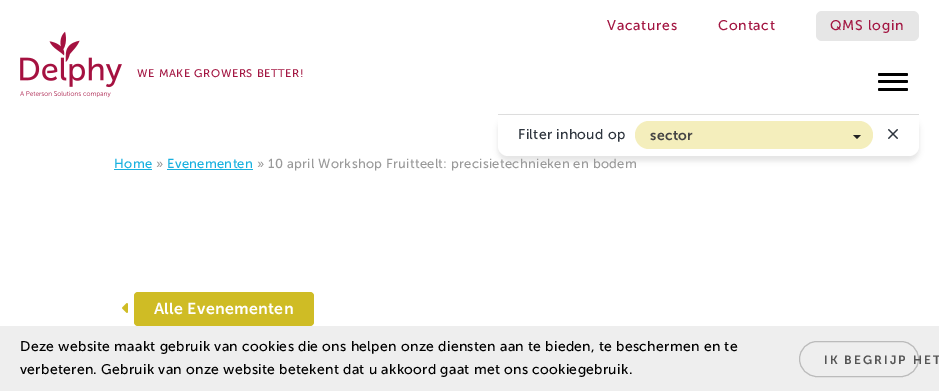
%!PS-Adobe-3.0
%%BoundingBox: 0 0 939 391
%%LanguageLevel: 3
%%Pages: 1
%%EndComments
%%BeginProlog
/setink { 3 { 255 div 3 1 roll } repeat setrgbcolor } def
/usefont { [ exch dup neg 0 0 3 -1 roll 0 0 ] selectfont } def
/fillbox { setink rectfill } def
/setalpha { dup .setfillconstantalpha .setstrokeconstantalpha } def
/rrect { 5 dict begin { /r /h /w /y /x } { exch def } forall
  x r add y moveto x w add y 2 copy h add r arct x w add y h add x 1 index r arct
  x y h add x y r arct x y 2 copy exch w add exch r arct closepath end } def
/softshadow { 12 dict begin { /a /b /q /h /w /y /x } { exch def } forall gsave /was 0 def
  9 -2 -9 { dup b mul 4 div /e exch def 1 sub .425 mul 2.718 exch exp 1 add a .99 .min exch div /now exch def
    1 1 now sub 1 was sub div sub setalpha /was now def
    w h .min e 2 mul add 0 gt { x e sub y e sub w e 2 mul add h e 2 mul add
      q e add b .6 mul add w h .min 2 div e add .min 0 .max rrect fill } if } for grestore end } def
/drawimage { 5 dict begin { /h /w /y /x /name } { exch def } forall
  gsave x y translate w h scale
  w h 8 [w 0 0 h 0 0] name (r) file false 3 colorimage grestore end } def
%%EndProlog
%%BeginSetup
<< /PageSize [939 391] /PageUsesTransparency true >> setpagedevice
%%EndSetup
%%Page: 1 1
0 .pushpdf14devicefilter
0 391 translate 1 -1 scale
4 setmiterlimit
0 0 939 391 255 255 255 fillbox
/MuseoSans-Regular 14 usefont
163 22 66 setink
607 30 moveto 0.75 0 (Vacatures) ashow
718 30 moveto 0.75 0 (Contact) ashow
230 230 230 setink
816 11 103 30 6 rrect fill
163 22 66 setink
830 30 moveto 0.75 0 (QMS login) ashow
(assets/img1.rgb) 20 31 102 67 drawimage
/MuseoSans-Regular 11.1 usefont
137 77 moveto 0.6 0 (WE MAKE GROWERS BETTER!) ashow
0 0 0 setink
878 73 30 3 1.5 rrect fill
878 80 30 3 1.5 rrect fill
878 88 30 3 1.5 rrect fill
498 119 421 42 10 2.5 0.1 softshadow
255 255 255 setink
498 114 moveto 919 114 lineto 919 146 lineto 919 151.5 914.5 156 909 156 curveto 508 156 lineto 502.5 156 498 151.5 498 146 curveto closepath fill
498 114 421 1 221 221 221 fillbox
/MuseoSans-Regular 14 usefont
46 53 62 setink
518 139 moveto 0.3 0 (Filter inhoud op) ashow
244 238 188 setink
635 121 238 28 14 rrect fill
/MuseoSans-SemiBold 14 usefont
68 68 68 setink
650 140 moveto 0.3 0 (sector) ashow
34 34 34 setink
853 135 moveto 861 135 lineto 857 139 lineto closepath fill
(assets/img2.rgb) 888 129 10 10 drawimage
/MuseoSans-Regular 13 usefont
23 176 223 setink
114 168 moveto 0.3 0 (Home) ashow
114 169 38 1 23 176 223 fillbox
153 153 153 setink
156 168 moveto 0.3 0 (») ashow
23 176 223 setink
167 168 moveto 0.3 0 (Evenementen) ashow
167 169 86 1 23 176 223 fillbox
153 153 153 setink
257 168 moveto 0.3 0 (» 10 april Workshop Fruitteelt: precisietechnieken en bodem) ashow
207 188 37 setink
134 292 180 34 4 rrect fill
(assets/img3.rgb) 122 303 6 10 drawimage
/MuseoSans-SemiBold 16 usefont
255 255 255 setink
154 314 moveto 0.3 0 (Alle Evenementen) ashow
0 326 939 65 238 238 238 fillbox
/MuseoSans-Regular 14 usefont
0 0 0 setink
20 351 moveto 0.3 0 (Deze website maakt gebruik van cookies die ons helpen onze diensten aan te bieden, te beschermen en te) ashow
20 374 moveto 0.3 0 (verbeteren. Gebruik van onze website betekent dat u akkoord gaat met ons cookiegebruik.) ashow
187 187 187 setink
799.5 341.5 119 35 17.5 rrect stroke
/MuseoSans-SemiBold 12 usefont
85 85 85 setink
824 364 moveto 2 0 (IK BEGRIJP HET) ashow
.poppdf14devicefilter showpage
%%EOF
